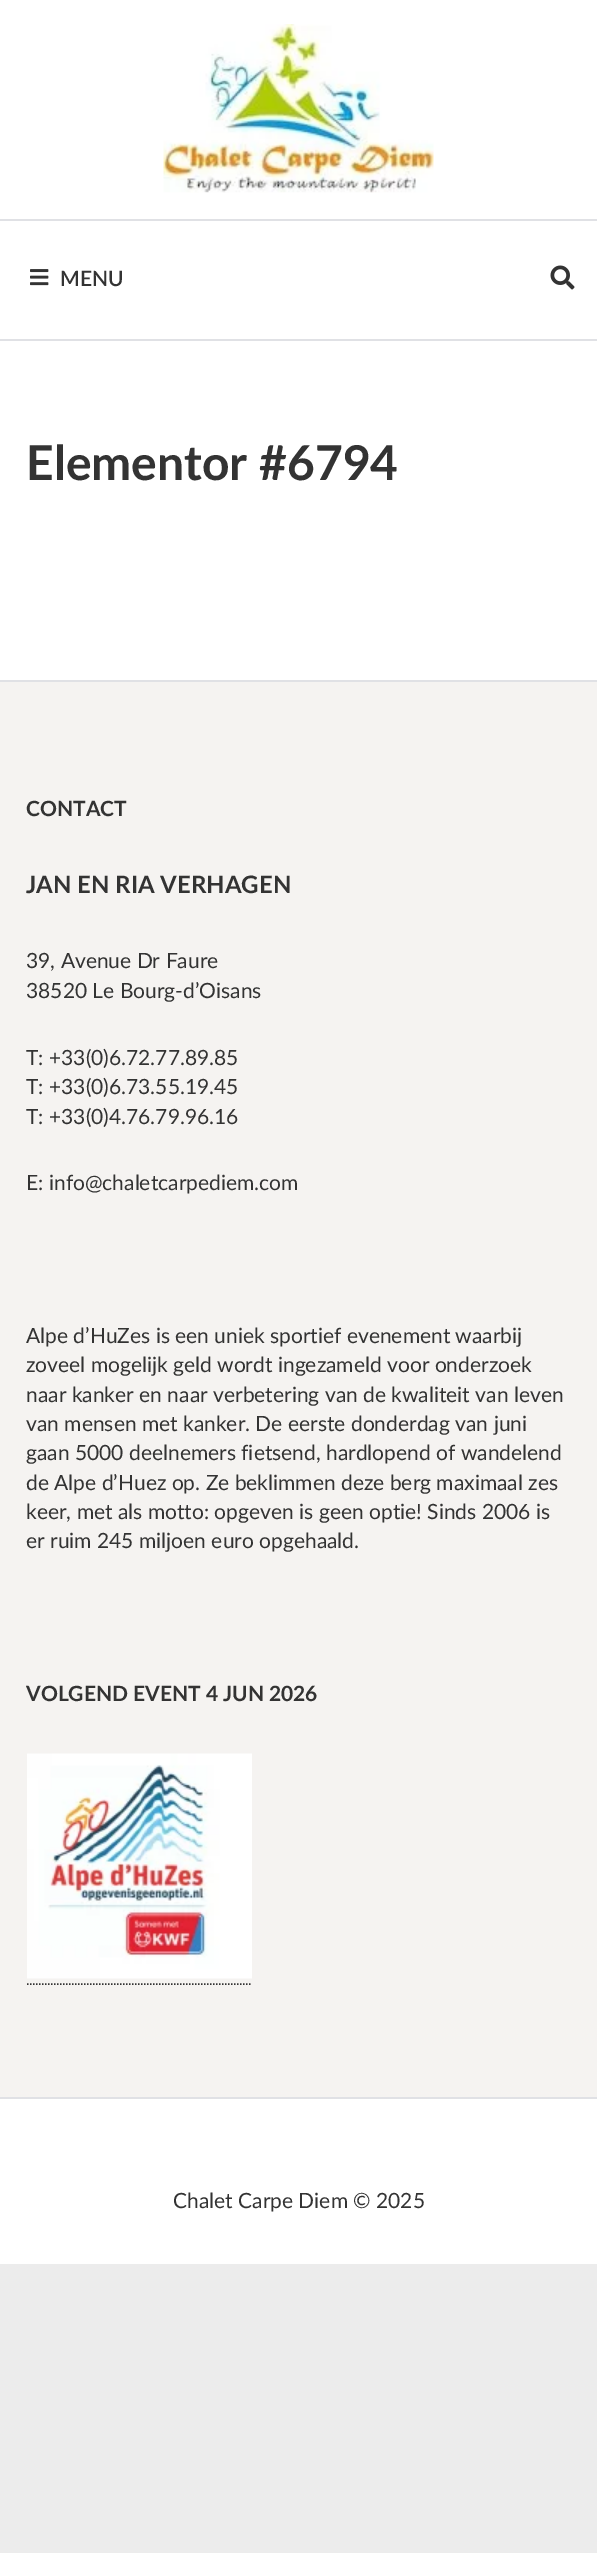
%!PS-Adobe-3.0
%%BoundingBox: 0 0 597 2553
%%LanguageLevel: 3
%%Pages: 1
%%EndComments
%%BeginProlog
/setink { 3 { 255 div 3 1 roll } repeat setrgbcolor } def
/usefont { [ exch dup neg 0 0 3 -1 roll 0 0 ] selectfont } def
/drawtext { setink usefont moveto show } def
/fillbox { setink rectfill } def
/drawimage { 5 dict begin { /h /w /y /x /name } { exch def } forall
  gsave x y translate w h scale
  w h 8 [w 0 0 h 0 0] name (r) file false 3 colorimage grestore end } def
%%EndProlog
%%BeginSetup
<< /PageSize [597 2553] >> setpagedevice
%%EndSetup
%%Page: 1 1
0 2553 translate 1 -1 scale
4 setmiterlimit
0 0 597 2553 236 236 236 fillbox
0 0 597 680 255 255 255 fillbox
0 219 597 2 224 225 229 fillbox
(assets/img1.rgb) 163 24 271 169 drawimage
0 339 597 2 224 225 229 fillbox
(assets/img2.rgb) 30 269 19 17 drawimage
(MENU) 60 286 /Lato-SemiBold 21 51 51 51 drawtext
(assets/img3.rgb) 550 265 25 25 drawimage
(Elementor #6794) 26 480 /Lato-Bold 48 51 51 51 drawtext
0 682 597 1415 245 243 241 fillbox
0 680 597 2 224 225 229 fillbox
(CONTACT) 26 816 /Lato-Bold 21 51 51 51 drawtext
(JAN EN RIA VERHAGEN) 26 893 /Lato-Bold 24 51 51 51 drawtext
(39, Avenue Dr Faure) 26 968 /Lato-Regular 21 51 51 51 drawtext
(38520 Le Bourg-d’Oisans) 26 998 /Lato-Regular 21 51 51 51 drawtext
(T: +33\(0\)6.72.77.89.85) 26 1065 /Lato-Regular 21 51 51 51 drawtext
(T: +33\(0\)6.73.55.19.45) 26 1094 /Lato-Regular 21 51 51 51 drawtext
(T: +33\(0\)4.76.79.96.16) 26 1124 /Lato-Regular 21 51 51 51 drawtext
(E: info@chaletcarpediem.com) 26 1190 /Lato-Regular 21 51 51 51 drawtext
(Alpe d’HuZes is een uniek sportief evenement waarbij) 26 1343 /Lato-Regular 21 51 51 51 drawtext
(zoveel mogelijk geld wordt ingezameld voor onderzoek) 26 1372 /Lato-Regular 21 51 51 51 drawtext
(naar kanker en naar verbetering van de kwaliteit van leven) 26 1402 /Lato-Regular 21 51 51 51 drawtext
(van mensen met kanker. De eerste donderdag van juni) 26 1431 /Lato-Regular 21 51 51 51 drawtext
(gaan 5000 deelnemers fietsend, hardlopend of wandelend) 26 1460 /Lato-Regular 21 51 51 51 drawtext
(de Alpe d’Huez op. Ze beklimmen deze berg maximaal zes) 26 1490 /Lato-Regular 21 51 51 51 drawtext
(keer, met als motto: opgeven is geen optie! Sinds 2006 is) 26 1519 /Lato-Regular 21 51 51 51 drawtext
(er ruim 245 miljoen euro opgehaald.) 26 1548 /Lato-Regular 21 51 51 51 drawtext
(VOLGEND EVENT 4 JUN 2026) 26 1701 /Lato-Bold 21 51 51 51 drawtext
(assets/img4.rgb) 27 1753 225 226 drawimage
1.5 setlinewidth
[1.5 1.5] 0 setdash
27 1984 moveto 252 1984 lineto stroke
0 2099 597 165 255 255 255 fillbox
0 2097 597 2 224 225 229 fillbox
(Chalet Carpe Diem © 2025) 173 2208 /Lato-Regular 21 51 51 51 drawtext
showpage
%%EOF
